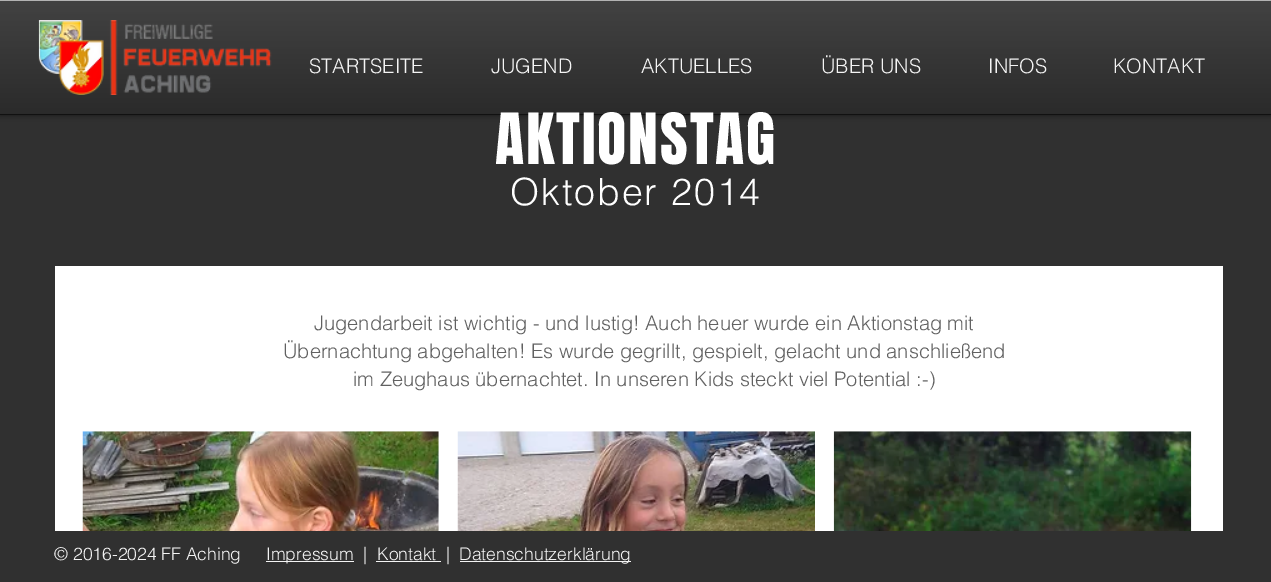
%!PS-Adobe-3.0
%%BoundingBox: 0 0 1271 582
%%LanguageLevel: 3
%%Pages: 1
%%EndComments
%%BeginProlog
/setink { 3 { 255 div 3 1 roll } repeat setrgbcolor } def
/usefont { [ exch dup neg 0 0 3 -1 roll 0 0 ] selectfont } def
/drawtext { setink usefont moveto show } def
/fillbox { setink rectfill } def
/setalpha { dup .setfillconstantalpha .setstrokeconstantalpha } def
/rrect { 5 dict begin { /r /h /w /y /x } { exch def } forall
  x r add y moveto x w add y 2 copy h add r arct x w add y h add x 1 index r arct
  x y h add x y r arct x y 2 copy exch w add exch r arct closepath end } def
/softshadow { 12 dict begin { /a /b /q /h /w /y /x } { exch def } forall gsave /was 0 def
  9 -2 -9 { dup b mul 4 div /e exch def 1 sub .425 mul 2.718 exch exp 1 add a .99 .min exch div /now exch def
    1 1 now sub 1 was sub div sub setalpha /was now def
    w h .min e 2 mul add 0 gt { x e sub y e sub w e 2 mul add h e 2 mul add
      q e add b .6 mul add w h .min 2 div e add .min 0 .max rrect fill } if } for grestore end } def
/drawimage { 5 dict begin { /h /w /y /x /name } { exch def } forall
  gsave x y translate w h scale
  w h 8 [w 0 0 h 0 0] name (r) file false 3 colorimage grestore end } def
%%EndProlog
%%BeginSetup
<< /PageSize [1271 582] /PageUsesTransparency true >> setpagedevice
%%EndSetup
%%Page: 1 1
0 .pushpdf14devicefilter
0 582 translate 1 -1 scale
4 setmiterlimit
0 0 1271 582 48 48 48 fillbox
0 0 0 setink
0 0 1271 115 0 3 0.6 softshadow
0 1 1271 113 0 0 0 fillbox
(assets/img1.rgb) 0 1 1271 113 drawimage
0 114 1271 1 17 17 17 fillbox
0 0 1271 1 179 179 179 fillbox
(assets/img2.rgb) 38 20 234 75 drawimage
(STARTSEITE) 309 73 /helvetica-Light 20 244 244 244 drawtext
(JUGEND) 491 73 /helvetica-Light 20 244 244 244 drawtext
(AKTUELLES) 641 73 /helvetica-Light 20 244 244 244 drawtext
(ÜBER UNS) 821 73 /helvetica-Light 20 244 244 244 drawtext
(INFOS) 988 73 /helvetica-Light 20 244 244 244 drawtext
(KONTAKT) 1113 73 /helvetica-Light 20 244 244 244 drawtext
/Anton-Regular 60 usefont
255 255 255 setink
495 164 moveto 1.9 0 (AKTIONSTAG) ashow
/helvetica-Light 37.5 usefont
510 205 moveto 1.9 0 (Oktober 2014) ashow
55 266 1168 265 255 255 255 fillbox
(Jugendarbeit ist wichtig - und lustig! Auch heuer wurde ein Aktionstag mit) 314 330 /helvetica-Light 20 97 97 97 drawtext
(Übernachtung abgehalten! Es wurde gegrillt, gespielt, gelacht und anschließend) 283 358 /helvetica-Light 20 97 97 97 drawtext
(im Zeughaus übernachtet. In unseren Kids steckt viel Potential :-\)) 353 386 /helvetica-Light 20 97 97 97 drawtext
(assets/img3.rgb) 82 431 357 100 drawimage
(assets/img4.rgb) 457 431 358 100 drawimage
(assets/img5.rgb) 833 431 359 100 drawimage
(© 2016-2024 FF Aching) 54 560 /helvetica-Light 17.5 244 244 244 drawtext
266 561 88 1 244 244 244 fillbox
(Impressum) 266 560 /helvetica-Light 17.5 244 244 244 drawtext
(|) 363 560 /helvetica-Light 17.5 244 244 244 drawtext
(Kontakt) 377 560 /helvetica-Light 17.5 244 244 244 drawtext
376 561 65 1 244 244 244 fillbox
(|) 446 560 /helvetica-Light 17.5 244 244 244 drawtext
460 561 171 1 244 244 244 fillbox
(Datenschutzerklärung) 459 560 /helvetica-Light 17.5 244 244 244 drawtext
.poppdf14devicefilter showpage
%%EOF
